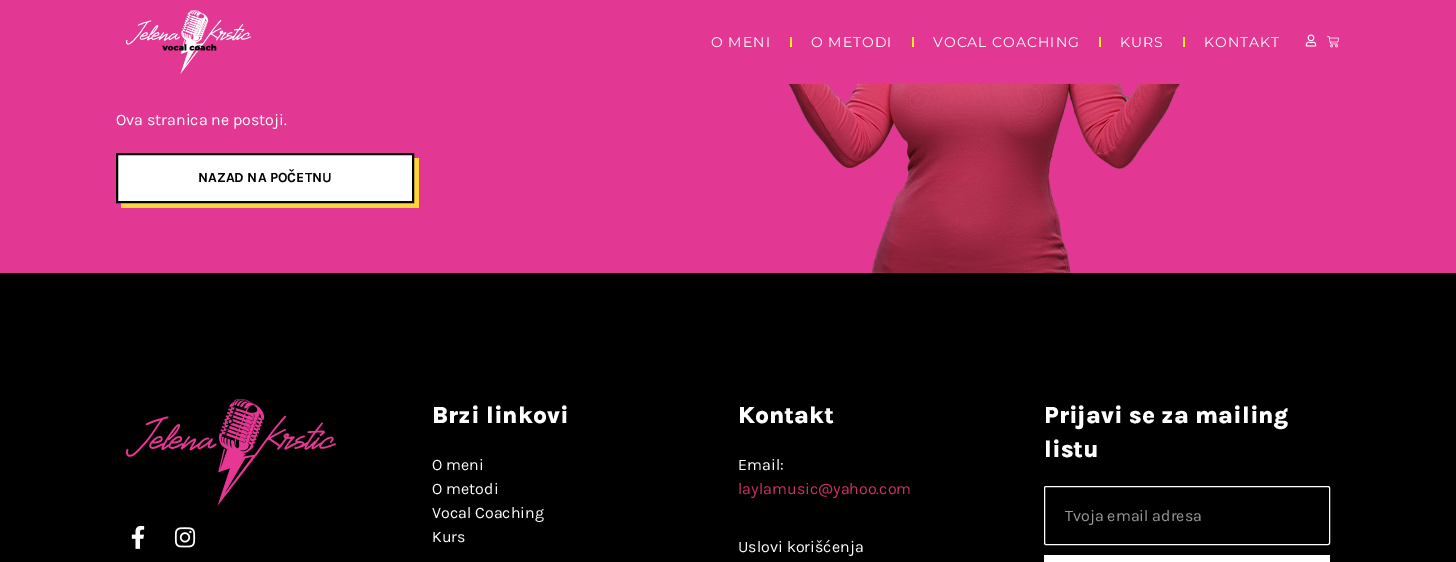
%!PS-Adobe-3.0
%%BoundingBox: 0 0 1456 562
%%LanguageLevel: 3
%%Pages: 1
%%EndComments
%%BeginProlog
/setink { 3 { 255 div 3 1 roll } repeat setrgbcolor } def
/usefont { [ exch dup neg 0 0 3 -1 roll 0 0 ] selectfont } def
/drawtext { setink usefont moveto show } def
/fillbox { setink rectfill } def
/rrect { 5 dict begin { /r /h /w /y /x } { exch def } forall
  x r add y moveto x w add y 2 copy h add r arct x w add y h add x 1 index r arct
  x y h add x y r arct x y 2 copy exch w add exch r arct closepath end } def
/drawimage { 5 dict begin { /h /w /y /x /name } { exch def } forall
  gsave x y translate w h scale
  w h 8 [w 0 0 h 0 0] name (r) file false 3 colorimage grestore end } def
%%EndProlog
%%BeginSetup
<< /PageSize [1456 562] >> setpagedevice
%%EndSetup
%%Page: 1 1
0 562 translate 1 -1 scale
4 setmiterlimit
0 0 1456 562 227 55 148 fillbox
(assets/img1.rgb) 126 10 125 64 drawimage
/Montserrat-Regular 14 usefont
255 255 255 setink
711 47 moveto 1 0 (O MENI) ashow
790 37 2 10 248 237 32 fillbox
255 255 255 setink
811 47 moveto 1 0 (O METODI) ashow
912 37 2 10 248 237 32 fillbox
255 255 255 setink
933 47 moveto 1 0 (VOCAL COACHING) ashow
1099 37 2 10 248 237 32 fillbox
255 255 255 setink
1120 47 moveto 1 0 (KURS) ashow
1183 37 2 10 248 237 32 fillbox
255 255 255 setink
1204 47 moveto 1 0 (KONTAKT) ashow
(assets/img2.rgb) 1305 34 12 13 drawimage
(assets/img3.rgb) 1327 36 12 12 drawimage
(Ova stranica ne postoji.) 116 125 /Karla-Regular 16 255 255 255 drawtext
255 214 57 setink
121 203 moveto 121 208 lineto 419 208 lineto 419 158 lineto 414 158 lineto 414 203 lineto closepath fill
255 255 255 setink
117 154 moveto 413 154 lineto 413 202 lineto 117 202 lineto closepath gsave fill grestore
0 0 0 setink
2 setlinewidth
stroke
(NAZAD NA POČETNU) 198 182 /Karla-Bold 14 0 0 0 drawtext
(assets/img4.rgb) 788 84 393 189 drawimage
0 273 1456 289 0 0 0 fillbox
(assets/img5.rgb) 126 399 210 107 drawimage
(assets/img6.rgb) 131 525 14 24 drawimage
(assets/img7.rgb) 174 527 22 21 drawimage
(Brzi linkovi) 432 423 /Karla-ExtraBold 24 255 255 255 drawtext
(O meni) 432 470 /Karla-Regular 16 255 255 255 drawtext
(O metodi) 432 494 /Karla-Regular 16 255 255 255 drawtext
(Vocal Coaching) 432 518 /Karla-Regular 16 255 255 255 drawtext
(Kurs) 432 542 /Karla-Regular 16 255 255 255 drawtext
(Kontakt) 738 423 /Karla-ExtraBold 24 255 255 255 drawtext
(Email:) 738 470 /Karla-Regular 16 255 255 255 drawtext
(laylamusic@yahoo.com) 738 494 /Karla-Regular 16 204 51 102 drawtext
(Uslovi korišćenja) 738 552 /Karla-Regular 16 255 255 255 drawtext
(Prijavi se za mailing) 1044 423 /Karla-ExtraBold 24 255 255 255 drawtext
(listu) 1044 457 /Karla-ExtraBold 24 255 255 255 drawtext
1 setlinewidth
1044.5 486.5 285 58 1.5 rrect stroke
(Tvoja email adresa) 1065 521 /Karla-Regular 16 153 153 153 drawtext
1044 555 286 7 255 255 255 fillbox
showpage
%%EOF
